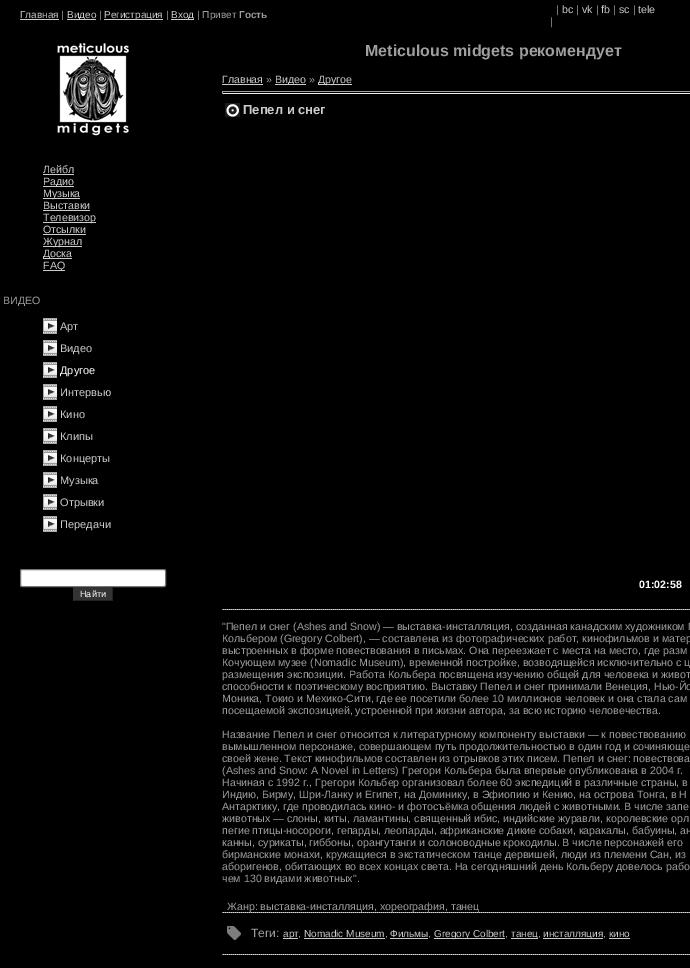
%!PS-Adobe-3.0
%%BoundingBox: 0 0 690 968
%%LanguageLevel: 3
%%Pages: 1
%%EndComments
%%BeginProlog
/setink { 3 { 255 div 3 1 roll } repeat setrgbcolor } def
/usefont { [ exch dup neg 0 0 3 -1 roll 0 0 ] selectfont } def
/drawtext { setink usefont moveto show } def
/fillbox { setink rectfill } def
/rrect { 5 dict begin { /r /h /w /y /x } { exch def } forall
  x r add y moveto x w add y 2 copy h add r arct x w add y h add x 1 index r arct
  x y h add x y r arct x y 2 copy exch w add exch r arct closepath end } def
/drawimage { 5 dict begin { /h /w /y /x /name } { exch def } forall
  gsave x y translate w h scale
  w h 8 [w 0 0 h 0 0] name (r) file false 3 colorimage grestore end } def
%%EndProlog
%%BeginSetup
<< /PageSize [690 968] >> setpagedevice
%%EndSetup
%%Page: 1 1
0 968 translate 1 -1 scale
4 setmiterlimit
0 0 690 968 0 0 0 fillbox
(Главная) 20 18 /LiberationSans-Regular 10 204 204 204 drawtext
20 19 39 1 204 204 204 fillbox
(|) 61 18 /LiberationSans-Regular 10 159 159 159 drawtext
67 19 29 1 204 204 204 fillbox
(Видео) 67 18 /LiberationSans-Regular 10 204 204 204 drawtext
(|) 99 18 /LiberationSans-Regular 10 159 159 159 drawtext
104 19 59 1 204 204 204 fillbox
(Регистрация) 104 18 /LiberationSans-Regular 10 204 204 204 drawtext
(|) 166 18 /LiberationSans-Regular 10 159 159 159 drawtext
171 19 23 1 204 204 204 fillbox
(Вход) 171 18 /LiberationSans-Regular 10 204 204 204 drawtext
(| Привет) 197 18 /LiberationSans-Regular 10 159 159 159 drawtext
(Гость) 239 18 /LiberationSans-Bold 10 159 159 159 drawtext
(|) 556 13 /LiberationSans-Regular 10.65 159 159 159 drawtext
(bc) 562 13 /LiberationSans-Regular 10.65 204 204 204 drawtext
(|) 576 13 /LiberationSans-Regular 10.65 159 159 159 drawtext
(vk) 582 13 /LiberationSans-Regular 10.65 204 204 204 drawtext
(|) 596 13 /LiberationSans-Regular 10.65 159 159 159 drawtext
(fb) 601 13 /LiberationSans-Regular 10.65 204 204 204 drawtext
(|) 613 13 /LiberationSans-Regular 10.65 159 159 159 drawtext
(sc) 619 13 /LiberationSans-Regular 10.65 204 204 204 drawtext
(|) 633 13 /LiberationSans-Regular 10.65 159 159 159 drawtext
(tele) 638 13 /LiberationSans-Regular 10.65 204 204 204 drawtext
(|) 550 25 /LiberationSans-Regular 10.65 159 159 159 drawtext
(assets/img1.rgb) 57 43 72 93 drawimage
(Лейбл) 43 173 /LiberationSans-Regular 10.65 204 204 204 drawtext
43 174 31 1 204 204 204 fillbox
43 186 31 1 204 204 204 fillbox
(Радио) 43 185 /LiberationSans-Regular 10.65 204 204 204 drawtext
43 198 37 1 204 204 204 fillbox
(Музыка) 43 197 /LiberationSans-Regular 10.65 204 204 204 drawtext
(Выставки) 43 209 /LiberationSans-Regular 10.65 204 204 204 drawtext
43 210 47 1 204 204 204 fillbox
43 222 53 1 204 204 204 fillbox
(Телевизор) 43 221 /LiberationSans-Regular 10.65 204 204 204 drawtext
(Отсылки) 43 233 /LiberationSans-Regular 10.65 204 204 204 drawtext
43 234 43 1 204 204 204 fillbox
43 246 39 1 204 204 204 fillbox
(Журнал) 43 245 /LiberationSans-Regular 10.65 204 204 204 drawtext
43 258 29 1 204 204 204 fillbox
(Доска) 43 257 /LiberationSans-Regular 10.65 204 204 204 drawtext
43 270 22 1 204 204 204 fillbox
(FAQ) 43 269 /LiberationSans-Regular 10.65 204 204 204 drawtext
(ВИДЕО) 3 304 /LiberationSans-Regular 10.65 159 159 159 drawtext
(assets/img2.rgb) 43 318 14 16 drawimage
(Арт) 60 330 /LiberationSans-Regular 11 204 204 204 drawtext
(assets/img2.rgb) 43 340 14 16 drawimage
(Видео) 60 352 /LiberationSans-Regular 11 204 204 204 drawtext
(assets/img2.rgb) 43 362 14 16 drawimage
(Другое) 60 374 /LiberationSans-Regular 11 255 255 255 drawtext
(assets/img2.rgb) 43 384 14 16 drawimage
(Интервью) 60 396 /LiberationSans-Regular 11 204 204 204 drawtext
(assets/img2.rgb) 43 406 14 16 drawimage
(Кино) 60 418 /LiberationSans-Regular 11 204 204 204 drawtext
(assets/img2.rgb) 43 428 14 16 drawimage
(Клипы) 60 440 /LiberationSans-Regular 11 204 204 204 drawtext
(assets/img2.rgb) 43 450 14 16 drawimage
(Концерты) 60 462 /LiberationSans-Regular 11 204 204 204 drawtext
(assets/img2.rgb) 43 472 14 16 drawimage
(Музыка) 60 484 /LiberationSans-Regular 11 204 204 204 drawtext
(assets/img2.rgb) 43 494 14 16 drawimage
(Отрывки) 60 506 /LiberationSans-Regular 11 204 204 204 drawtext
(assets/img2.rgb) 43 516 14 16 drawimage
(Передачи) 60 528 /LiberationSans-Regular 11 204 204 204 drawtext
255 255 255 setink
20.5 569.5 145 17 1.5 rrect gsave fill grestore
118 118 118 setink
stroke
74 587 38 13 51 51 51 fillbox
112 587 1 14 34 34 34 fillbox
73 600 40 1 34 34 34 fillbox
73 587 1 14 51 51 51 fillbox
(Найти) 80 597 /LiberationSans-Regular 9 255 255 255 drawtext
(Meticulous midgets рекомендует) 365 56 /LiberationSans-Bold 16 159 159 159 drawtext
(Главная) 222 83 /LiberationSans-Regular 10.65 204 204 204 drawtext
222 84 41 1 204 204 204 fillbox
(») 266 83 /LiberationSans-Regular 10.65 159 159 159 drawtext
275 84 31 1 204 204 204 fillbox
(Видео) 275 83 /LiberationSans-Regular 10.65 204 204 204 drawtext
(») 309 83 /LiberationSans-Regular 10.65 159 159 159 drawtext
318 84 34 1 204 204 204 fillbox
(Другое) 318 83 /LiberationSans-Regular 10.65 204 204 204 drawtext
222 91 468 1 159 159 159 fillbox
222 93 468 1 238 238 238 fillbox
222 91 1 3 159 159 159 fillbox
(assets/img3.rgb) 225 103 15 14 drawimage
(Пепел и снег) 243 114 /LiberationSans-Bold 13 204 204 204 drawtext
(01:02:58) 639 588 /LiberationSans-Bold 10.65 255 255 255 drawtext
222 609 468 1 214 214 214 fillbox
(assets/img4.rgb) 222 609 467 1 drawimage
("Пепел и снег \(Ashes and Snow\) — выставка-инсталляция, созданная канадским художником Г) 222 630 /LiberationSans-Regular 10.65 159 159 159 drawtext
(Кольбером \(Gregory Colbert\), — составлена из фотографических работ, кинофильмов и матер) 222 642 /LiberationSans-Regular 10.65 159 159 159 drawtext
(выстроенных в форме повествования в письмах. Она переезжает с места на место, где разм) 222 654 /LiberationSans-Regular 10.65 159 159 159 drawtext
(Кочующем музее \(Nomadic Museum\), временной постройке, возводящейся исключительно с ц) 222 666 /LiberationSans-Regular 10.65 159 159 159 drawtext
(размещения экспозиции. Работа Кольбера посвящена изучению общей для человека и живот) 222 678 /LiberationSans-Regular 10.65 159 159 159 drawtext
(способности к поэтическому восприятию. Выставку Пепел и снег принимали Венеция, Нью-Йо) 222 690 /LiberationSans-Regular 10.65 159 159 159 drawtext
(Моника, Токио и Мехико-Сити, где ее посетили более 10 миллионов человек и она стала сам) 222 702 /LiberationSans-Regular 10.65 159 159 159 drawtext
(посещаемой экспозицией, устроенной при жизни автора, за всю историю человечества.) 222 714 /LiberationSans-Regular 10.65 159 159 159 drawtext
(Название Пепел и снег относится к литературному компоненту выставки — к повествованию) 222 738 /LiberationSans-Regular 10.65 159 159 159 drawtext
(вымышленном персонаже, совершающем путь продолжительностью в один год и сочиняюще) 222 750 /LiberationSans-Regular 10.65 159 159 159 drawtext
(своей жене. Текст кинофильмов составлен из отрывков этих писем. Пепел и снег: повествова) 222 762 /LiberationSans-Regular 10.65 159 159 159 drawtext
(\(Ashes and Snow: A Novel in Letters\) Грегори Кольбера была впервые опубликована в 2004 г.) 222 774 /LiberationSans-Regular 10.65 159 159 159 drawtext
(Начиная с 1992 г., Грегори Кольбер организовал более 60 экспедиций в различные страны, в) 222 786 /LiberationSans-Regular 10.65 159 159 159 drawtext
(Индию, Бирму, Шри-Ланку и Египет, на Доминику, в Эфиопию и Кению, на острова Тонга, в Н) 222 798 /LiberationSans-Regular 10.65 159 159 159 drawtext
(Антарктику, где проводилась кино- и фотосъёмка общения людей с животными. В числе запе) 222 810 /LiberationSans-Regular 10.65 159 159 159 drawtext
(животных — слоны, киты, ламантины, священный ибис, индийские журавли, королевские орл) 222 822 /LiberationSans-Regular 10.65 159 159 159 drawtext
(пегие птицы-носороги, гепарды, леопарды, африканские дикие собаки, каракалы, бабуины, ан) 222 834 /LiberationSans-Regular 10.65 159 159 159 drawtext
(канны, сурикаты, гиббоны, орангутанги и солоноводные крокодилы. В числе персонажей его) 222 846 /LiberationSans-Regular 10.65 159 159 159 drawtext
(бирманские монахи, кружащиеся в экстатическом танце дервишей, люди из племени Сан, из) 222 858 /LiberationSans-Regular 10.65 159 159 159 drawtext
(аборигенов, обитающих во всех концах света. На сегодняшний день Кольберу довелось рабо) 222 870 /LiberationSans-Regular 10.65 159 159 159 drawtext
(чем 130 видами животных".) 222 882 /LiberationSans-Regular 10.65 159 159 159 drawtext
(Жанр: выставка-инсталляция, хореография, танец) 227 910 /LiberationSans-Regular 10.65 159 159 159 drawtext
222 912 468 1 214 214 214 fillbox
(assets/img4.rgb) 222 912 467 1 drawimage
(assets/img5.rgb) 227 926 14 14 drawimage
(Теги:) 251 937 /LiberationSans-Regular 12 159 159 159 drawtext
283 938 15 1 204 204 204 fillbox
(арт) 283 937 /LiberationSans-Regular 10 204 204 204 drawtext
(,) 298 937 /LiberationSans-Regular 10 159 159 159 drawtext
(Nomadic Museum) 304 937 /LiberationSans-Regular 10 204 204 204 drawtext
(,) 385 937 /LiberationSans-Regular 10 159 159 159 drawtext
304 938 81 1 204 204 204 fillbox
(Фильмы) 390 937 /LiberationSans-Regular 10 204 204 204 drawtext
(,) 428 937 /LiberationSans-Regular 10 159 159 159 drawtext
390 938 38 1 204 204 204 fillbox
434 938 71 1 204 204 204 fillbox
(Gregory Colbert) 434 937 /LiberationSans-Regular 10 204 204 204 drawtext
(,) 505 937 /LiberationSans-Regular 10 159 159 159 drawtext
511 938 27 1 204 204 204 fillbox
(танец) 511 937 /LiberationSans-Regular 10 204 204 204 drawtext
(,) 538 937 /LiberationSans-Regular 10 159 159 159 drawtext
543 938 60 1 204 204 204 fillbox
(инсталляция) 543 937 /LiberationSans-Regular 10 204 204 204 drawtext
(,) 603 937 /LiberationSans-Regular 10 159 159 159 drawtext
609 938 21 1 204 204 204 fillbox
(кино) 609 937 /LiberationSans-Regular 10 204 204 204 drawtext
222 954 468 1 214 214 214 fillbox
(assets/img4.rgb) 222 954 467 1 drawimage
showpage
%%EOF
